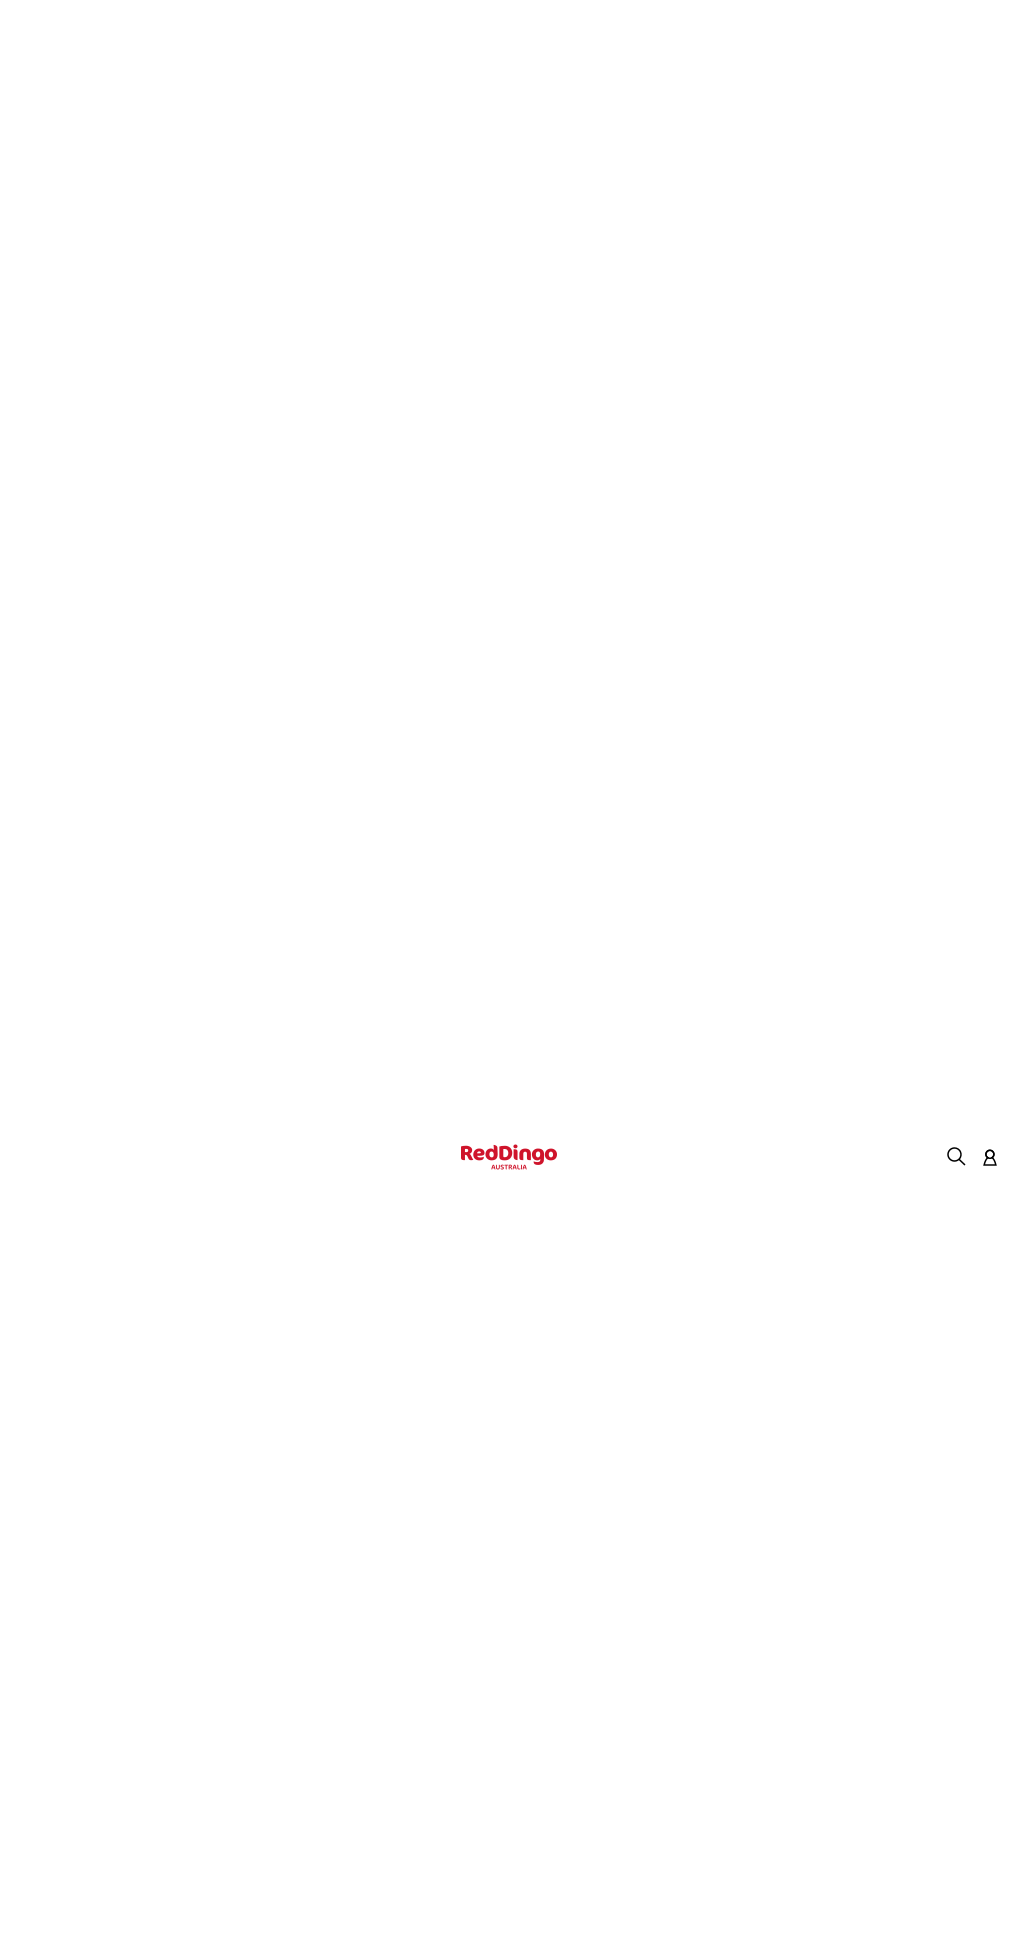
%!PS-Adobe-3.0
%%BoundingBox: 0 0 1017 1957
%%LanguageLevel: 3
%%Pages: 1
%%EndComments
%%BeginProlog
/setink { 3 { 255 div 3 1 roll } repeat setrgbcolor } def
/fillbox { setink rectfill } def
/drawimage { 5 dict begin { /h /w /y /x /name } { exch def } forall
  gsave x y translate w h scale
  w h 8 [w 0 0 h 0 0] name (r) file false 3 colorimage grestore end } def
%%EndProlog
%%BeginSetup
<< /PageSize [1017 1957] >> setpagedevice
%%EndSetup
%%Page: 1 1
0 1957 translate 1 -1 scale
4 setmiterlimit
0 0 1017 1957 255 255 255 fillbox
(assets/img1.rgb) 461 1144 96 26 drawimage
(assets/img2.rgb) 947 1147 19 19 drawimage
(assets/img3.rgb) 983 1149 14 17 drawimage
showpage
%%EOF
